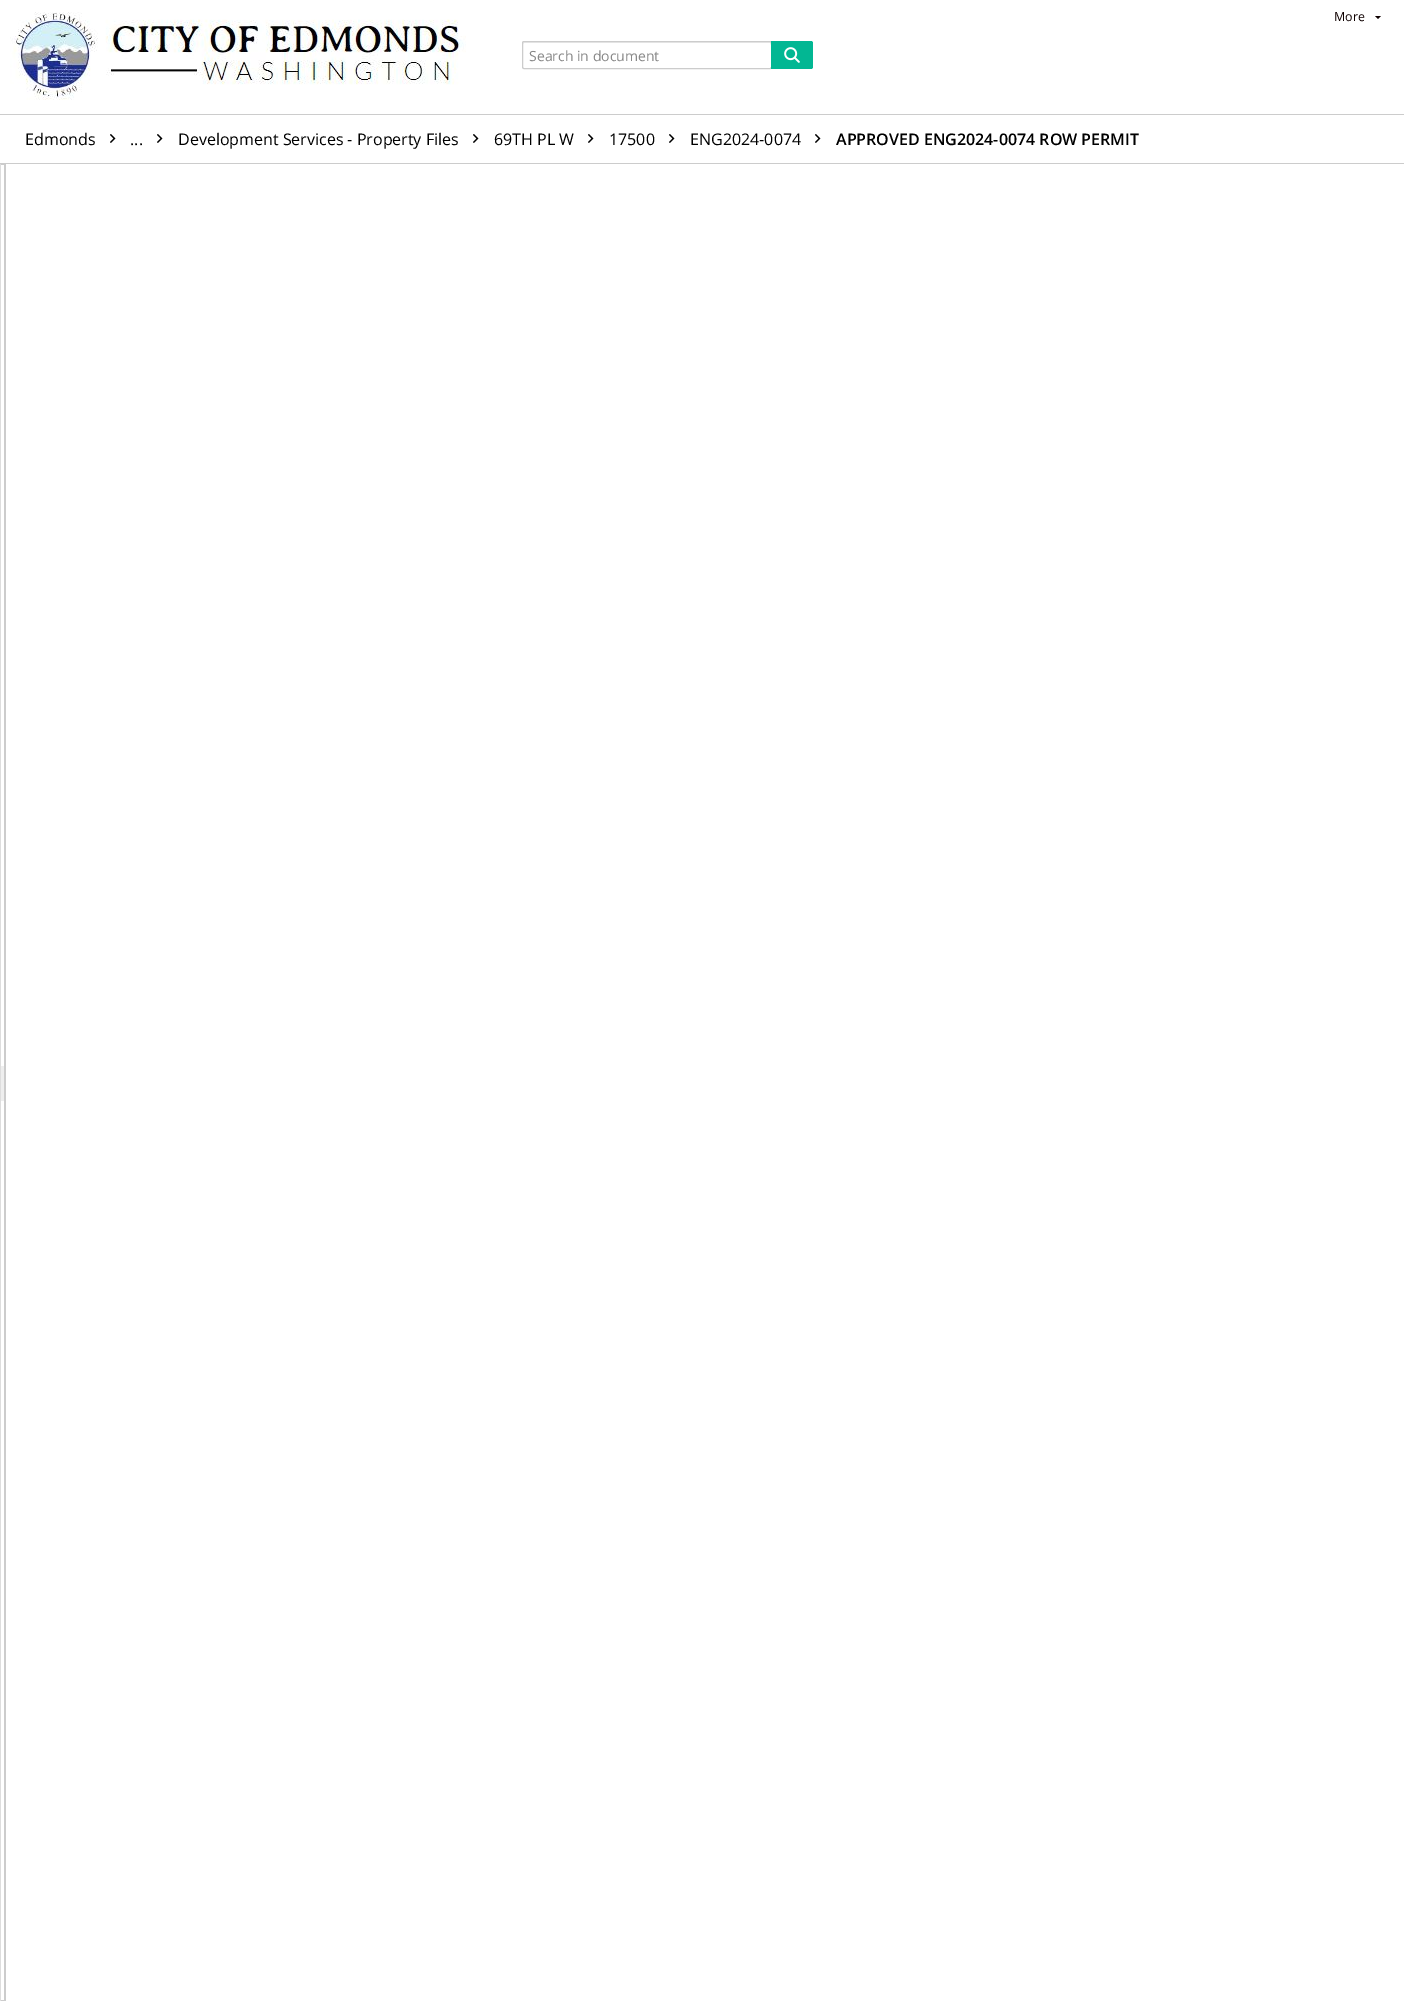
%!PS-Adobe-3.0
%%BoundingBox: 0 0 1404 2001
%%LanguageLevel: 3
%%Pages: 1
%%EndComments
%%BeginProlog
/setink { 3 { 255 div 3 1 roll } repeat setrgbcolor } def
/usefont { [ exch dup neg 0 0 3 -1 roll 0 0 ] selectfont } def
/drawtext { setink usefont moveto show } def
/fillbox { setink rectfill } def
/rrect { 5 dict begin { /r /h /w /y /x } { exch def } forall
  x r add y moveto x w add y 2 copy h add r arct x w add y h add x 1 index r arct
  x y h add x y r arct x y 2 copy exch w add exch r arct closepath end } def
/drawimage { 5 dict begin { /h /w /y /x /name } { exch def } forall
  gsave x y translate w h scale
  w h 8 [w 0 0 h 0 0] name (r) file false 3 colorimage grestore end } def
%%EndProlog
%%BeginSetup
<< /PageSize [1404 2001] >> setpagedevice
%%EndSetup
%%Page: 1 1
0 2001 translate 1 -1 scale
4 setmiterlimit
0 0 1404 2001 255 255 255 fillbox
0 114 1404 1 204 204 204 fillbox
(assets/img1.rgb) 10 12 456 88 drawimage
(More) 1334 21 /OpenSans-Regular 12.5 14 0 0 drawtext
1375 16 moveto 1381 16 lineto 1378 19 lineto closepath fill
236 236 236 setink
524 43 moveto 770 43 lineto 771 45 lineto 771 43 lineto 771 42 771 42 770 42 curveto 524 42 lineto 523 42 523 42 523 43 curveto 523 44 lineto closepath fill
204 204 204 setink
522.5 41.5 249 27 1.5 rrect stroke
(Search in document) 529 61 /OpenSans-Regular 14 137 137 137 drawtext
2 183 147 setink
771 41 moveto 811 41 lineto 812 41 813 42 813 43 curveto 813 67 lineto 813 68 812 69 811 69 curveto 771 69 lineto closepath fill
(assets/img2.rgb) 784 47 16 16 drawimage
0 163 1404 1 204 204 204 fillbox
(Edmonds) 25 145 /OpenSans-Regular 16 0 0 0 drawtext
(assets/img3.rgb) 110 134 6 9 drawimage
(assets/img3.rgb) 157 134 6 9 drawimage
(...) 130 145 /OpenSans-Regular 16 0 0 0 drawtext
(Development Services - Property Files) 178 145 /OpenSans-Regular 16 0 0 0 drawtext
(assets/img3.rgb) 473 134 6 9 drawimage
(69TH PL W) 494 145 /OpenSans-Regular 16 0 0 0 drawtext
(assets/img3.rgb) 588 134 6 9 drawimage
(17500) 609 145 /OpenSans-Regular 16 0 0 0 drawtext
(assets/img3.rgb) 669 134 6 9 drawimage
(ENG2024-0074) 690 145 /OpenSans-Regular 16 0 0 0 drawtext
(assets/img3.rgb) 815 134 6 9 drawimage
(APPROVED ENG2024-0074 ROW PERMIT) 836 145 /OpenSans-SemiBold 16 0 0 0 drawtext
0 164 5 1 204 204 204 fillbox
4 164 1 1837 204 204 204 fillbox
0 2000 5 1 204 204 204 fillbox
0 164 1 1837 221 221 221 fillbox
1 1066 3 35 238 238 238 fillbox
5 164 1 1837 204 204 204 fillbox
showpage
%%EOF
